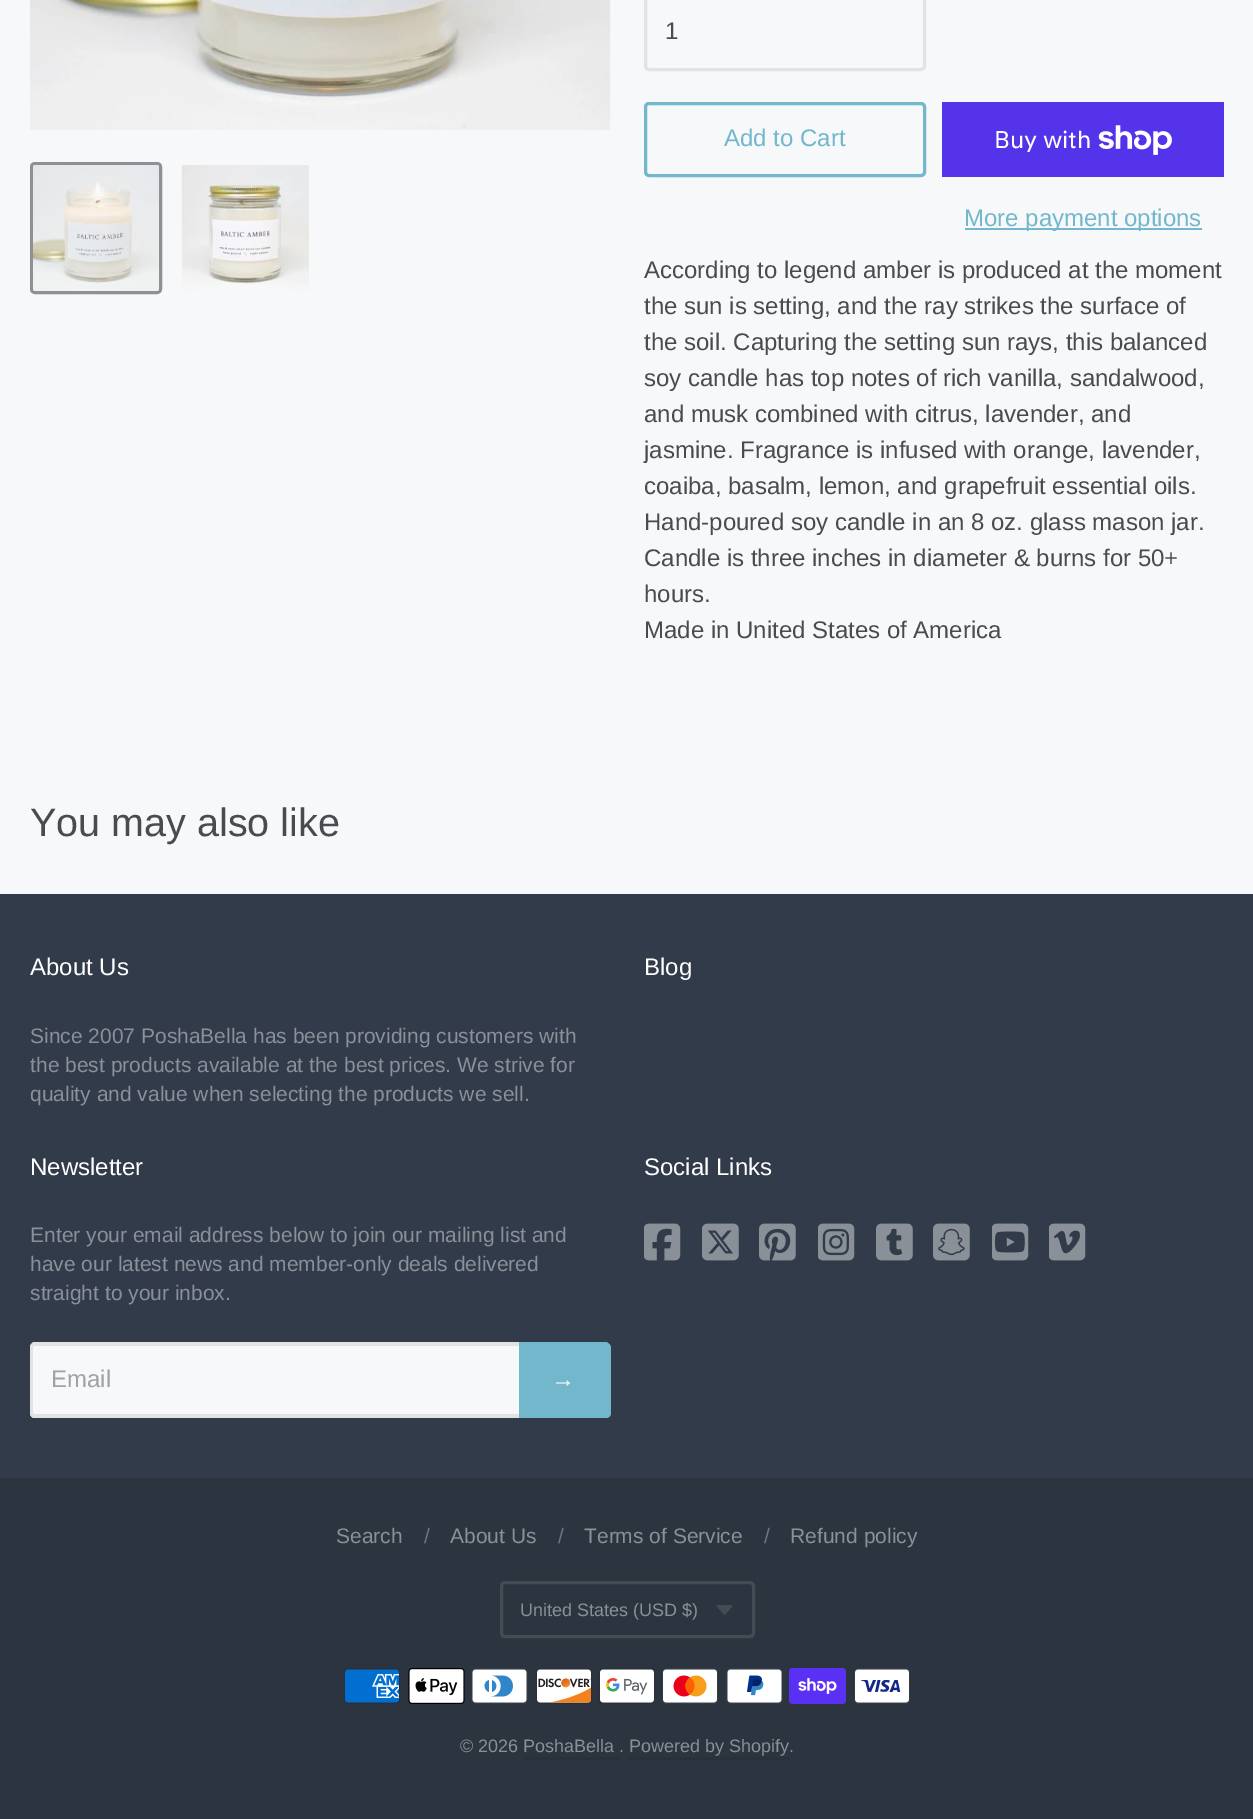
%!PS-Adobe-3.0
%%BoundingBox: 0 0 1253 1819
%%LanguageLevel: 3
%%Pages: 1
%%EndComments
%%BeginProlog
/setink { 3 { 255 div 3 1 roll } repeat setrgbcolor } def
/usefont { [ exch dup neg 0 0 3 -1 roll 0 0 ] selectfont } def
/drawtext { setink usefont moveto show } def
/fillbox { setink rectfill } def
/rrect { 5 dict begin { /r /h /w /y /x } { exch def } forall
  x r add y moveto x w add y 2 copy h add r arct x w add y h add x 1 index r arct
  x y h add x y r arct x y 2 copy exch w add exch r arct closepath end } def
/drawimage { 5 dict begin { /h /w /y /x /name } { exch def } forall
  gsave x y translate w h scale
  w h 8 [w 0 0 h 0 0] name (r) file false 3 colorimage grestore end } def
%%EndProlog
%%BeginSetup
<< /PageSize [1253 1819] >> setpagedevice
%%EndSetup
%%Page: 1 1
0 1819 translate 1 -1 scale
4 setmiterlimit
0 0 1253 1819 247 248 249 fillbox
(assets/img1.rgb) 30 0 581 130 drawimage
243 245 246 setink
31.5 163.5 129 129 3.5 rrect gsave fill grestore
142 144 147 setink
3 setlinewidth
stroke
(assets/img2.rgb) 33 165 126 126 drawimage
(assets/img3.rgb) 181 165 128 126 drawimage
225 227 228 setink
645.5 -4.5 279 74 3.5 rrect stroke
(1) 665 39 /LiberationSans-Regular 24 72 75 79 drawtext
115 183 204 setink
645.5 103.5 279 72 3.5 rrect stroke
(Add to Cart) 724 146 /LiberationSans-Regular 24 115 183 204 drawtext
942 102 282 75 84 51 235 fillbox
(Buy with) 994 148 /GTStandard-Regular 24 255 255 255 drawtext
(assets/img4.rgb) 1098 125 74 30 drawimage
965 228 237 2 115 183 204 fillbox
(More payment options) 964 226 /LiberationSans-Regular 24 115 183 204 drawtext
(According to legend amber is produced at the moment) 644 278 /LiberationSans-Regular 24 72 75 79 drawtext
(the sun is setting, and the ray strikes the surface of) 644 314 /LiberationSans-Regular 24 72 75 79 drawtext
(the soil. Capturing the setting sun rays, this balanced) 644 350 /LiberationSans-Regular 24 72 75 79 drawtext
(soy candle has top notes of rich vanilla, sandalwood,) 644 386 /LiberationSans-Regular 24 72 75 79 drawtext
(and musk combined with citrus, lavender, and) 644 422 /LiberationSans-Regular 24 72 75 79 drawtext
(jasmine. Fragrance is infused with orange, lavender,) 644 458 /LiberationSans-Regular 24 72 75 79 drawtext
(coaiba, basalm, lemon, and grapefruit essential oils.) 644 494 /LiberationSans-Regular 24 72 75 79 drawtext
(Hand-poured soy candle in an 8 oz. glass mason jar.) 644 530 /LiberationSans-Regular 24 72 75 79 drawtext
(Candle is three inches in diameter & burns for 50+) 644 566 /LiberationSans-Regular 24 72 75 79 drawtext
(hours.) 644 602 /LiberationSans-Regular 24 72 75 79 drawtext
(Made in United States of America) 644 638 /LiberationSans-Regular 24 72 75 79 drawtext
(You may also like) 30 836 /LiberationSans-Regular 39.5 72 75 79 drawtext
0 894 1253 584 49 59 73 fillbox
(About Us) 30 975 /LiberationSans-Regular 24 255 255 255 drawtext
(Since 2007 PoshaBella has been providing customers with) 30 1043 /LiberationSans-Regular 21 138 144 152 drawtext
(the best products available at the best prices. We strive for) 30 1072 /LiberationSans-Regular 21 138 144 152 drawtext
(quality and value when selecting the products we sell.) 30 1101 /LiberationSans-Regular 21 138 144 152 drawtext
(Blog) 644 975 /LiberationSans-Regular 24 255 255 255 drawtext
(Newsletter) 30 1175 /LiberationSans-Regular 24 255 255 255 drawtext
(Enter your email address below to join our mailing list and) 30 1242 /LiberationSans-Regular 21 138 144 152 drawtext
(have our latest news and member-only deals delivered) 30 1271 /LiberationSans-Regular 21 138 144 152 drawtext
(straight to your inbox.) 30 1300 /LiberationSans-Regular 21 138 144 152 drawtext
247 248 249 setink
35 1343 moveto 519 1343 lineto 519 1418 lineto 35 1418 lineto 32 1418 30 1416 30 1413 curveto 30 1348 lineto 30 1345 32 1343 35 1343 curveto closepath fill
225 227 228 setink
34 1342 moveto 519 1342 lineto 519 1418 lineto 34 1418 lineto 32 1418 30 1415 30 1413 curveto 30 1347 lineto 30 1345 32 1342 34 1342 curveto closepath 34 1346 moveto 519 1346 lineto 519 1414 lineto 34 1414 lineto 33 1413 lineto 33 1347 lineto 33 1346 34 1346 34 1346 curveto closepath eofill
(Email) 51 1387 /LiberationSans-Regular 24 160 162 164 drawtext
115 183 204 setink
519 1343 moveto 606 1343 lineto 609 1343 611 1345 611 1348 curveto 611 1413 lineto 611 1416 609 1418 606 1418 curveto 519 1418 lineto closepath fill
519 1342 moveto 606 1342 lineto 608 1342 610 1345 610 1347 curveto 610 1413 lineto 610 1415 608 1418 606 1418 curveto 519 1418 lineto closepath 519 1346 moveto 606 1346 lineto 607 1346 608 1346 608 1347 curveto 608 1413 lineto 608 1414 607 1414 606 1414 curveto 519 1414 lineto closepath eofill
(→) 551 1387 /LiberationSans-Regular 24 255 255 255 drawtext
(Social Links) 644 1175 /LiberationSans-Regular 24 255 255 255 drawtext
(assets/img5.rgb) 644 1223 37 38 drawimage
(assets/img6.rgb) 702 1223 37 38 drawimage
(assets/img7.rgb) 759 1223 37 38 drawimage
(assets/img8.rgb) 818 1223 37 38 drawimage
(assets/img9.rgb) 876 1223 37 38 drawimage
(assets/img10.rgb) 933 1223 37 38 drawimage
(assets/img11.rgb) 992 1223 37 38 drawimage
(assets/img12.rgb) 1049 1223 37 38 drawimage
0 1478 1253 341 44 52 63 fillbox
(Search) 336 1543 /LiberationSans-Regular 21 138 144 152 drawtext
(/) 424 1543 /LiberationSans-Regular 21 110 116 125 drawtext
(About Us) 450 1543 /LiberationSans-Regular 21 138 144 152 drawtext
(/) 558 1543 /LiberationSans-Regular 21 110 116 125 drawtext
(Terms of Service) 584 1543 /LiberationSans-Regular 21 138 144 152 drawtext
(/) 764 1543 /LiberationSans-Regular 21 110 116 125 drawtext
(Refund policy) 790 1543 /LiberationSans-Regular 21 138 144 152 drawtext
(assets/img13.rgb) 716 1605 17 10 drawimage
68 75 85 setink
501.5 1582.5 252 54 3.5 rrect stroke
(United States \(USD $\)) 520 1616 /LiberationSans-Regular 18 138 144 152 drawtext
(assets/img14.rgb) 344 1668 56 36 drawimage
(assets/img15.rgb) 408 1668 57 36 drawimage
(assets/img16.rgb) 471 1668 57 36 drawimage
(assets/img17.rgb) 536 1668 56 36 drawimage
(assets/img18.rgb) 599 1668 56 36 drawimage
(assets/img19.rgb) 662 1668 56 36 drawimage
(assets/img20.rgb) 726 1668 57 36 drawimage
(assets/img21.rgb) 789 1668 57 36 drawimage
(assets/img22.rgb) 854 1668 56 36 drawimage
(© 2026 PoshaBella . Powered by Shopify.) 460 1752 /LiberationSans-Regular 18 138 144 152 drawtext
524 1757 96 3 42 49 60 fillbox
629 1757 160 3 42 49 60 fillbox
showpage
%%EOF
